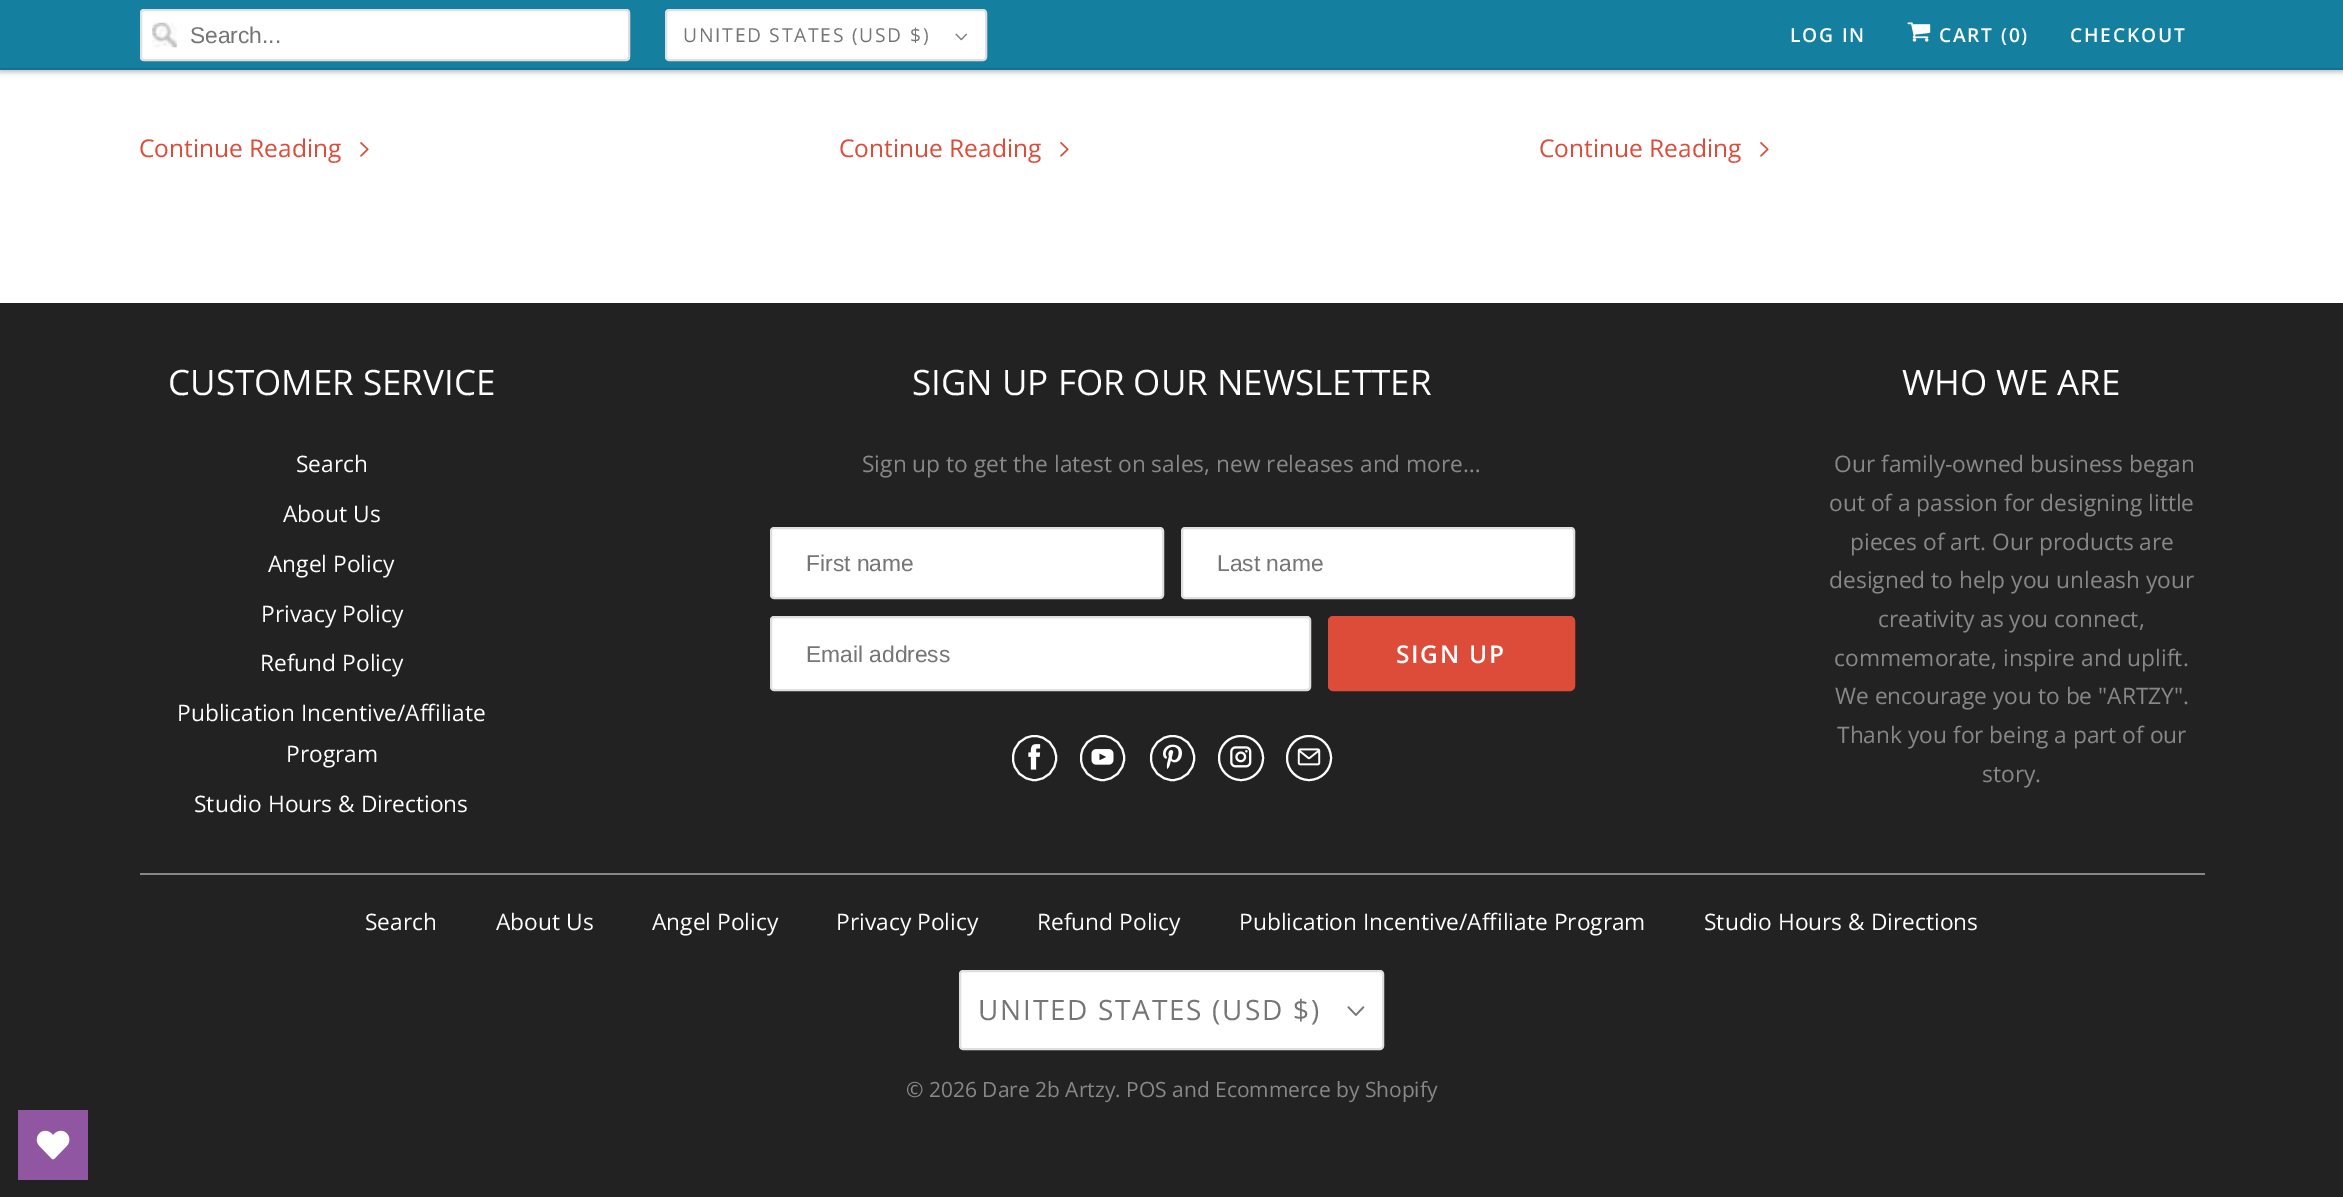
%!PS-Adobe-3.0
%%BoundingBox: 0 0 2343 1197
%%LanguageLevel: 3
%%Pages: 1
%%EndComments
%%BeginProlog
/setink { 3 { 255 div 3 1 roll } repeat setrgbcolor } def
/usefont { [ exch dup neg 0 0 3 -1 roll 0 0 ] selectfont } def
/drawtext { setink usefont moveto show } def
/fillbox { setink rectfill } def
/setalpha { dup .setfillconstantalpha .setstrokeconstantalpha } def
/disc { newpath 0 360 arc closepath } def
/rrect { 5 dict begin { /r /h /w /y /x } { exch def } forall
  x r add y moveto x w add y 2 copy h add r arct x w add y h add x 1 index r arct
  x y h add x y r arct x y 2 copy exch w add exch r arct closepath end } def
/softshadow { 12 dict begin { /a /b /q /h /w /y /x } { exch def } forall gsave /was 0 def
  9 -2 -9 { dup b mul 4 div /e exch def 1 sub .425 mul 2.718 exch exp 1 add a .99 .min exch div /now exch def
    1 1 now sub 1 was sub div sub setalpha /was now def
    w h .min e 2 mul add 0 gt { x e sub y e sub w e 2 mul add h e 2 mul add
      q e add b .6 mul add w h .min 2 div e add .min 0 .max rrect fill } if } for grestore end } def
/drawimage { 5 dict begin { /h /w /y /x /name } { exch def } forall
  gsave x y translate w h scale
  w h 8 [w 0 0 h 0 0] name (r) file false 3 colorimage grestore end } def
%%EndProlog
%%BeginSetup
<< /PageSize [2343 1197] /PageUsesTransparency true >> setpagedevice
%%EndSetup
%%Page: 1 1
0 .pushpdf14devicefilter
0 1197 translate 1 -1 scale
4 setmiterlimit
0 0 2343 1197 255 255 255 fillbox
0 0 0 setink
0 2 2343 70 0 2.5 0.25 softshadow
0 0 2343 68 21 127 159 fillbox
0 68 2343 2 19 114 143 fillbox
255 255 255 setink
140 9 490 52 4 rrect fill
(assets/img1.rgb) 152 22 25 26 drawimage
223 223 223 setink
2 setlinewidth
141 10 488 50 3 rrect stroke
(Search...) 190 43 /LiberationSans-Regular 22.75 117 117 117 drawtext
255 255 255 setink
666 10 320 50 3 rrect gsave fill grestore
223 223 223 setink
stroke
/OpenSans-Regular 19.25 usefont
117 117 117 setink
683 42 moveto 1.75 0 (UNITED STATES \(USD $\)) ashow
(assets/img2.rgb) 955 33 12 8 drawimage
/OpenSans-SemiBold 19.25 usefont
255 255 255 setink
1790 42 moveto 1.75 0 (LOG IN) ashow
(assets/img3.rgb) 1907 22 24 20 drawimage
1939 42 moveto 1.75 0 (CART \(0\)) ashow
2070 42 moveto 1.75 0 (CHECKOUT) ashow
(Continue Reading) 139 157 /OpenSans-Regular 24.5 221 75 57 drawtext
(assets/img4.rgb) 360 142 9 15 drawimage
(Continue Reading) 839 157 /OpenSans-Regular 24.5 221 75 57 drawtext
(assets/img4.rgb) 1060 142 9 15 drawimage
(Continue Reading) 1539 157 /OpenSans-Regular 24.5 221 75 57 drawtext
(assets/img4.rgb) 1760 142 9 15 drawimage
0 303 2343 894 34 34 34 fillbox
(CUSTOMER SERVICE) 168 395 /OpenSans-Regular 35 255 255 255 drawtext
(Search) 296 472 /OpenSans-Regular 22.75 255 255 255 drawtext
(About Us) 283 522 /OpenSans-Regular 22.75 255 255 255 drawtext
(Angel Policy) 268 572 /OpenSans-Regular 22.75 255 255 255 drawtext
(Privacy Policy) 261 622 /OpenSans-Regular 22.75 255 255 255 drawtext
(Refund Policy) 260 671 /OpenSans-Regular 22.75 255 255 255 drawtext
(Publication Incentive/Affiliate) 177 721 /OpenSans-Regular 22.75 255 255 255 drawtext
(Program) 286 762 /OpenSans-Regular 22.75 255 255 255 drawtext
(Studio Hours & Directions) 194 812 /OpenSans-Regular 22.75 255 255 255 drawtext
(SIGN UP FOR OUR NEWSLETTER) 912 395 /OpenSans-Regular 35 255 255 255 drawtext
(Sign up to get the latest on sales, new releases and more…) 862 472 /OpenSans-Regular 22.75 136 136 136 drawtext
255 255 255 setink
771 528 392 70 3 rrect gsave fill grestore
223 223 223 setink
stroke
(First name) 806 571 /LiberationSans-Regular 22.75 117 117 117 drawtext
255 255 255 setink
1182 528 392 70 3 rrect gsave fill grestore
223 223 223 setink
stroke
(Last name) 1217 571 /LiberationSans-Regular 22.75 117 117 117 drawtext
255 255 255 setink
771 617 539 73 3 rrect gsave fill grestore
223 223 223 setink
stroke
(Email address) 806 662 /LiberationSans-Regular 22.75 117 117 117 drawtext
221 75 57 setink
1329 617 245 73 4 rrect gsave fill grestore
stroke
/OpenSans-SemiBold 24.5 usefont
255 255 255 setink
1396 663 moveto 1.75 0 (SIGN UP) ashow
1013 736 43 44 21.5 rrect stroke
(assets/img5.rgb) 1028 744 13 26 drawimage
1081 736 43 44 21.5 rrect stroke
(assets/img6.rgb) 1091 749 23 16 drawimage
1151 736 43 44 21.5 rrect stroke
(assets/img7.rgb) 1163 744 19 25 drawimage
1241 758 22 disc stroke
(assets/img8.rgb) 1230 746 22 22 drawimage
1309 758 22 disc stroke
(assets/img9.rgb) 1297 748 24 18 drawimage
(WHO WE ARE) 1902 395 /OpenSans-Regular 35 255 255 255 drawtext
(Our family-owned business began) 1834 472 /OpenSans-Regular 22.75 136 136 136 drawtext
(out of a passion for designing little) 1829 511 /OpenSans-Regular 22.75 136 136 136 drawtext
(pieces of art. Our products are) 1850 550 /OpenSans-Regular 22.75 136 136 136 drawtext
(designed to help you unleash your) 1829 588 /OpenSans-Regular 22.75 136 136 136 drawtext
(creativity as you connect,) 1878 627 /OpenSans-Regular 22.75 136 136 136 drawtext
(commemorate, inspire and uplift.) 1834 666 /OpenSans-Regular 22.75 136 136 136 drawtext
(We encourage you to be "ARTZY".) 1835 704 /OpenSans-Regular 22.75 136 136 136 drawtext
(Thank you for being a part of our) 1837 743 /OpenSans-Regular 22.75 136 136 136 drawtext
(story.) 1982 782 /OpenSans-Regular 22.75 136 136 136 drawtext
140 873 2065 2 136 136 136 fillbox
(Search) 365 930 /OpenSans-Regular 22.75 255 255 255 drawtext
(About Us) 496 930 /OpenSans-Regular 22.75 255 255 255 drawtext
(Angel Policy) 652 930 /OpenSans-Regular 22.75 255 255 255 drawtext
(Privacy Policy) 836 930 /OpenSans-Regular 22.75 255 255 255 drawtext
(Refund Policy) 1037 930 /OpenSans-Regular 22.75 255 255 255 drawtext
(Publication Incentive/Affiliate Program) 1239 930 /OpenSans-Regular 22.75 255 255 255 drawtext
(Studio Hours & Directions) 1704 930 /OpenSans-Regular 22.75 255 255 255 drawtext
960 971 423 78 3 rrect gsave fill grestore
223 223 223 setink
stroke
/OpenSans-Regular 28 usefont
117 117 117 setink
978 1020 moveto 1.75 0 (UNITED STATES \(USD $\)) ashow
(assets/img10.rgb) 1347 1006 18 10 drawimage
(© 2026 Dare 2b Artzy. POS and Ecommerce by Shopify) 906 1097 /OpenSans-Regular 21 136 136 136 drawtext
18 1110 70 70 144 86 162 fillbox
(assets/img11.rgb) 36 1130 34 30 drawimage
.poppdf14devicefilter showpage
%%EOF
